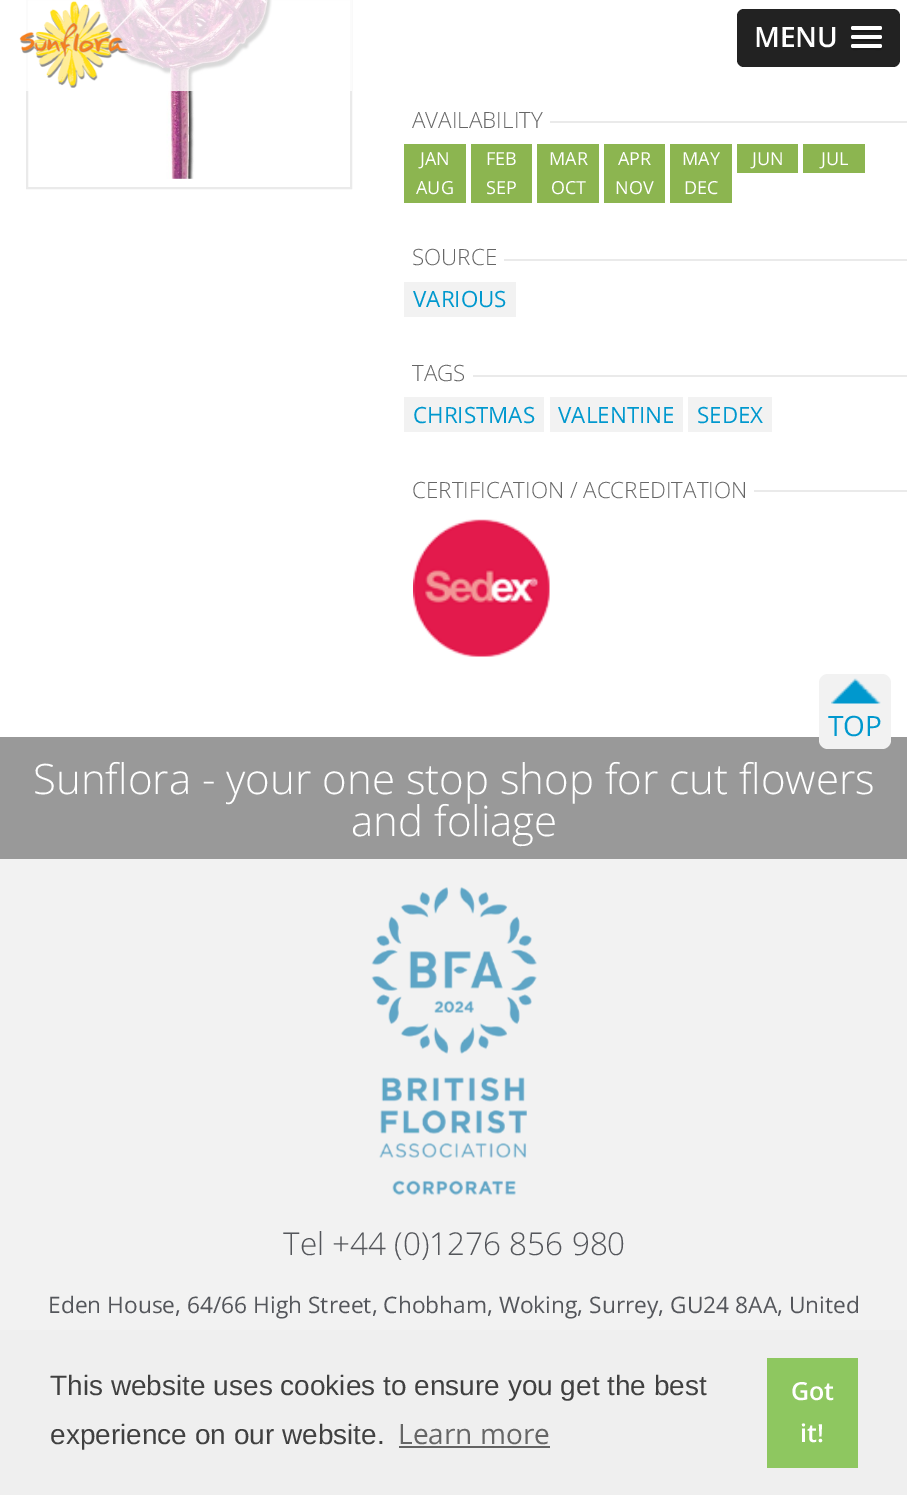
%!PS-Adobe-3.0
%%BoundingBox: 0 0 907 1495
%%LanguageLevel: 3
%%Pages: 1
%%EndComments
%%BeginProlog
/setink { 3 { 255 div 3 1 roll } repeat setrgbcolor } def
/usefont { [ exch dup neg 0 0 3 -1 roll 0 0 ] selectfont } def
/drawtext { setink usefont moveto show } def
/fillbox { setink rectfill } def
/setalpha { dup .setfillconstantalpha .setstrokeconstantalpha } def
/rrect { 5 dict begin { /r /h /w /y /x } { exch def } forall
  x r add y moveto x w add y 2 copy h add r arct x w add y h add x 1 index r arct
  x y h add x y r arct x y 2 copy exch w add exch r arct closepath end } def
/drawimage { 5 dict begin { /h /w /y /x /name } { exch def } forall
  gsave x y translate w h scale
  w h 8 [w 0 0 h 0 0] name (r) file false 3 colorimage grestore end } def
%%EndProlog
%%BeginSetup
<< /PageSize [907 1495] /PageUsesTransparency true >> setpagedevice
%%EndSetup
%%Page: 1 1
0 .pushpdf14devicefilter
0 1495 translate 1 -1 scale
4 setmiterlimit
0 0 907 1495 255 255 255 fillbox
234 234 234 setink
2 setlinewidth
27 -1 324 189 rectstroke
(assets/img2.rgb) 94 0 179 179 drawimage
0.8 setalpha
26 0 326 91 255 255 255 fillbox
1 setalpha
(assets/img1.rgb) 19 1 110 87 drawimage
34 34 34 setink
737 9 163 58 7 rrect fill
(MENU) 754 47 /OpenSans-SemiBold 28 255 255 255 drawtext
26 26 26 setink
851 29.5 moveto 850 33 856.5 32 857.5 32 curveto 875.5 32 lineto 876 32 884 33 881.5 29 curveto 880.5 29.5 lineto 852 29.5 lineto closepath fill
255 255 255 setink
851 26 31 4 2 rrect fill
26 26 26 setink
851 38 moveto 849.5 42 856.5 41 857.5 41 curveto 875.5 41 lineto 876.5 41 881.5 42 882 39.5 curveto 881.5 38 lineto 880.5 38.5 lineto 878 39 852 39 851 38 curveto closepath fill
255 255 255 setink
851 35 31 4 2 rrect fill
26 26 26 setink
851.5 47 moveto 849 51 857 50 857.5 50 curveto 875.5 50 lineto 876.5 50 881.5 51 882 48.5 curveto 882 48 882 47 881.5 46.5 curveto 880.5 47 lineto 878 47.5 852 47.5 851.5 47 curveto closepath fill
255 255 255 setink
851 44 31 4 2 rrect fill
550 121 357 2 234 234 234 fillbox
(AVAILABILITY) 412 128 /OpenSans-Light 22.4 102 102 102 drawtext
404 144 62 59 140 181 80 fillbox
(JAN) 420 165 /OpenSans-Regular 18 255 255 255 drawtext
471 144 61 59 140 181 80 fillbox
(FEB) 486 165 /OpenSans-Regular 18 255 255 255 drawtext
537 144 62 59 140 181 80 fillbox
(MAR) 549 165 /OpenSans-Regular 18 255 255 255 drawtext
604 144 61 59 140 181 80 fillbox
(APR) 618 165 /OpenSans-Regular 18 255 255 255 drawtext
670 144 62 59 140 181 80 fillbox
(MAY) 682 165 /OpenSans-Regular 18 255 255 255 drawtext
737 144 61 29 140 181 80 fillbox
(JUN) 752 165 /OpenSans-Regular 18 255 255 255 drawtext
803 144 62 29 140 181 80 fillbox
(JUL) 821 165 /OpenSans-Regular 18 255 255 255 drawtext
(AUG) 416 194 /OpenSans-Regular 18 255 255 255 drawtext
(SEP) 486 194 /OpenSans-Regular 18 255 255 255 drawtext
(OCT) 551 194 /OpenSans-Regular 18 255 255 255 drawtext
(NOV) 615 194 /OpenSans-Regular 18 255 255 255 drawtext
(DEC) 684 194 /OpenSans-Regular 18 255 255 255 drawtext
504 259 403 2 234 234 234 fillbox
(SOURCE) 412 265 /OpenSans-Light 22.4 102 102 102 drawtext
404 282 112 35 242 242 242 fillbox
(VARIOUS) 413 307 /OpenSans-Regular 22.4 0 152 206 drawtext
473 375 434 2 234 234 234 fillbox
(TAGS) 412 381 /OpenSans-Light 22.4 102 102 102 drawtext
404 397 140 35 242 242 242 fillbox
(CHRISTMAS) 413 423 /OpenSans-Regular 22.4 0 152 206 drawtext
550 397 133 35 242 242 242 fillbox
(VALENTINE) 558 423 /OpenSans-Regular 22.4 0 152 206 drawtext
688 397 84 35 242 242 242 fillbox
(SEDEX) 697 423 /OpenSans-Regular 22.4 0 152 206 drawtext
754 490 153 2 234 234 234 fillbox
(CERTIFICATION / ACCREDITATION) 412 498 /OpenSans-Light 22.4 102 102 102 drawtext
(assets/img3.rgb) 413 519 137 138 drawimage
0 737 907 122 153 153 153 fillbox
(Sunflora - your one stop shop for cut flowers) 33 794 /OpenSans-Light 42 255 255 255 drawtext
(and foliage) 351 836 /OpenSans-Light 42 255 255 255 drawtext
242 242 242 setink
819 674 72 75 9 rrect fill
(assets/img4.rgb) 831 678 50 26 drawimage
(TOP) 828 736 /OpenSans-Regular 28 0 152 206 drawtext
0 859 907 471 242 242 242 fillbox
(assets/img5.rgb) 371 887 166 309 drawimage
(Tel +44 \(0\)1276 856 980) 283 1255 /OpenSans-Light 31.5 84 86 91 drawtext
(Eden House, 64/66 High Street, Chobham, Woking, Surrey, GU24 8AA, United) 48 1313 /OpenSans-Regular 22.75 84 86 91 drawtext
0 1330 907 165 239 239 239 fillbox
(This website uses cookies to ensure you get the best) 50 1395 /LiberationSans-Regular 28 64 64 64 drawtext
(experience on our website.) 50 1444 /LiberationSans-Regular 28 64 64 64 drawtext
(Learn more) 398 1444 /OpenSans-Regular 28 102 102 102 drawtext
399 1446 151 2 99 99 99 fillbox
767 1358 91 110 142 199 96 fillbox
(Got) 791 1400 /OpenSans-SemiBold 25 255 255 255 drawtext
(it!) 800 1442 /OpenSans-SemiBold 25 255 255 255 drawtext
.poppdf14devicefilter showpage
%%EOF
